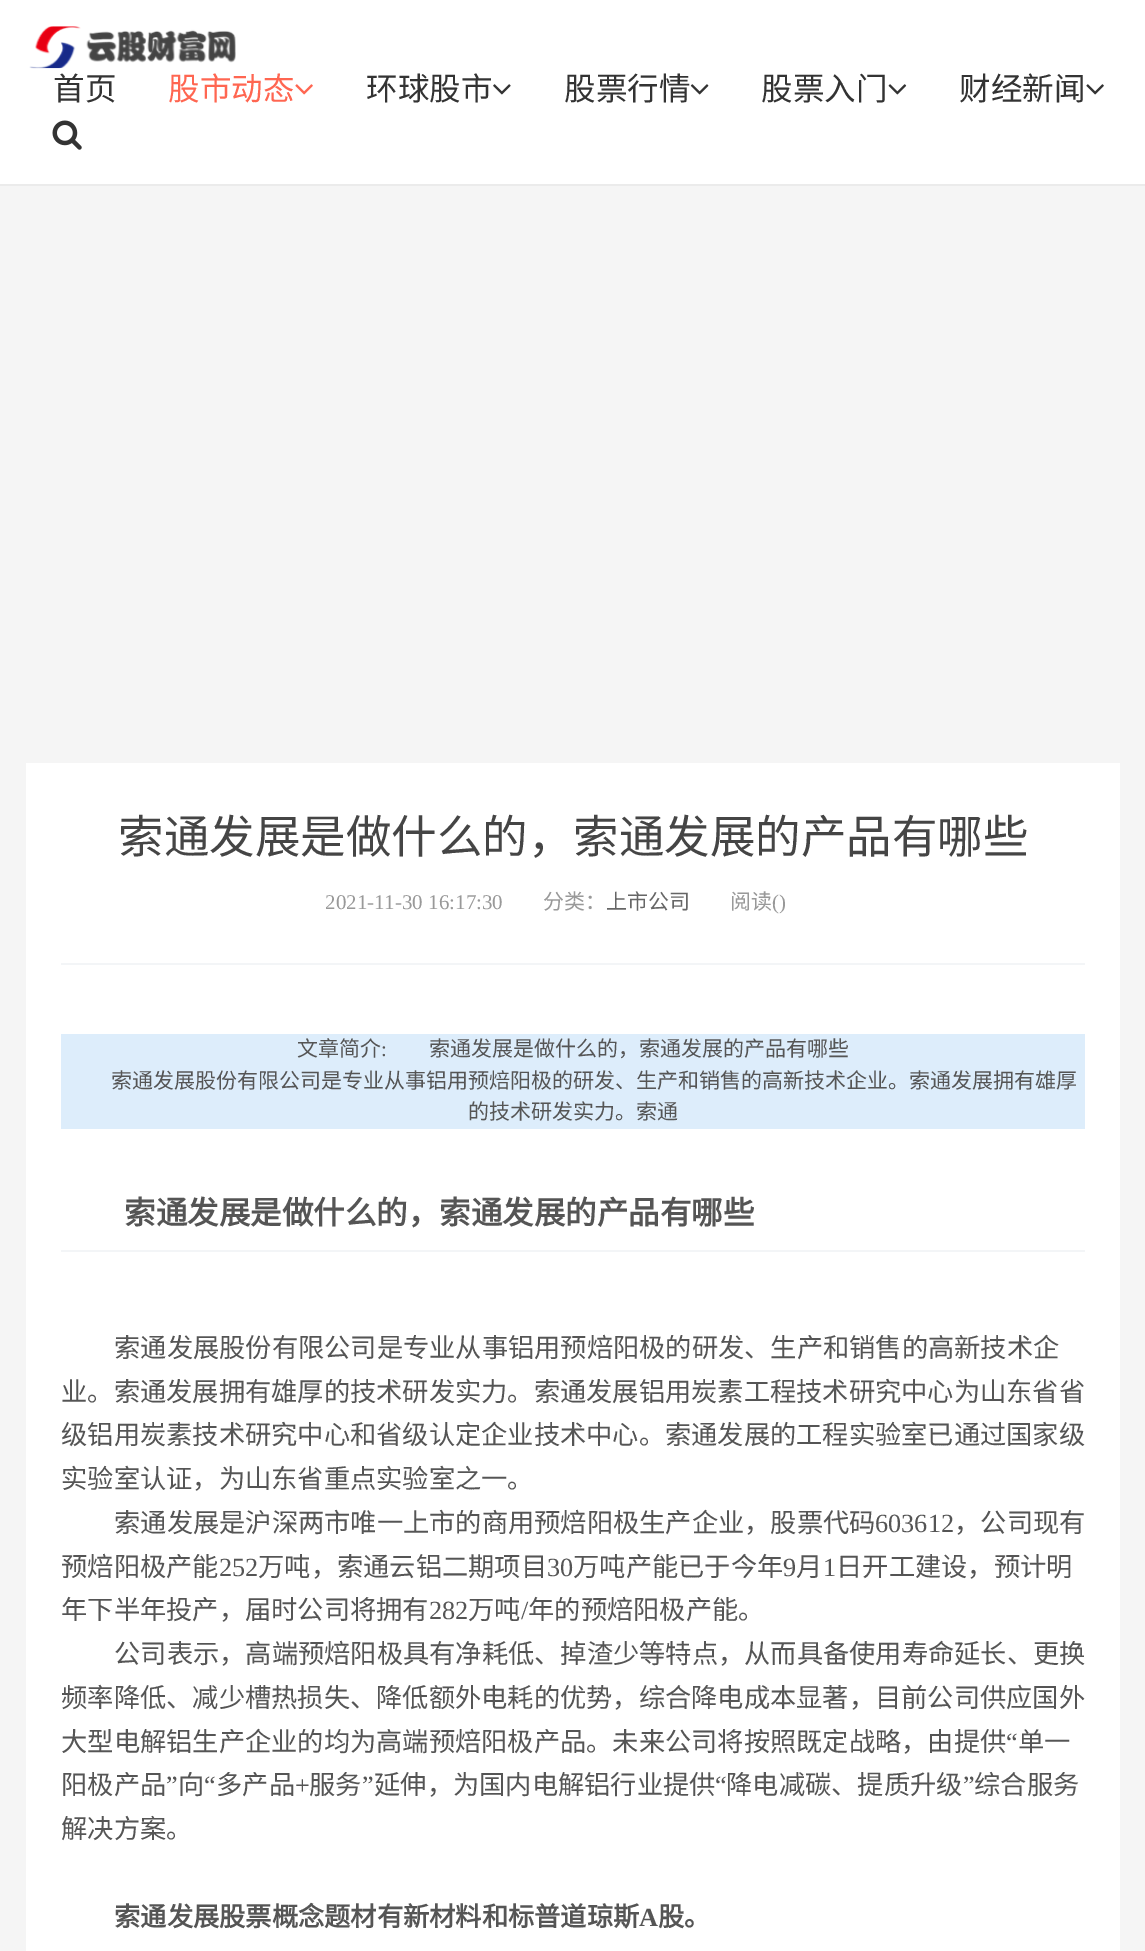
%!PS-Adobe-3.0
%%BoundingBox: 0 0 1145 1951
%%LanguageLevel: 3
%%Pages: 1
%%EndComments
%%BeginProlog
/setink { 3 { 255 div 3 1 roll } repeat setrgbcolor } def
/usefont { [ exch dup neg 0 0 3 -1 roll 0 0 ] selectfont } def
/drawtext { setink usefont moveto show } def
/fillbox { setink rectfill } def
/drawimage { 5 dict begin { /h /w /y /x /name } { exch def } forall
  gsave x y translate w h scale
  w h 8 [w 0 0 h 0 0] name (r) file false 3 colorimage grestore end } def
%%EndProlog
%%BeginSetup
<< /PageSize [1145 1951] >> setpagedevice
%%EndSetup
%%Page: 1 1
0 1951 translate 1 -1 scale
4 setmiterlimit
0 0 1145 1951 245 245 245 fillbox
0 0 1145 184 255 255 255 fillbox
0 184 1145 2 235 235 235 fillbox
(assets/img1.rgb) 29 26 207 43 drawimage
(首页) 53 100 /NotoSansCJKSC-Regular 31.5 51 51 51 drawtext
(股市动态) 168 100 /NotoSansCJKSC-Regular 31.5 255 102 81 drawtext
(assets/img2.rgb) 295 84 18 11 drawimage
(环球股市) 366 100 /NotoSansCJKSC-Regular 31.5 51 51 51 drawtext
(assets/img3.rgb) 493 84 18 11 drawimage
(股票行情) 564 100 /NotoSansCJKSC-Regular 31.5 51 51 51 drawtext
(assets/img4.rgb) 690 84 19 11 drawimage
(股票入门) 761 100 /NotoSansCJKSC-Regular 31.5 51 51 51 drawtext
(assets/img5.rgb) 888 84 19 11 drawimage
(财经新闻) 959 100 /NotoSansCJKSC-Regular 31.5 51 51 51 drawtext
(assets/img6.rgb) 1086 84 18 11 drawimage
(assets/img7.rgb) 52 120 30 30 drawimage
26 763 1094 1188 255 255 255 fillbox
61 963 1024 2 243 245 247 fillbox
(索通发展是做什么的，索通发展的产品有哪些) 118 853 /NotoSansCJKSC-Regular 45.5 69 69 69 drawtext
(2021-11-30 16:17:30) 325 909 /LiberationSerif-Regular 21 153 153 153 drawtext
(分类：) 543 909 /NotoSansCJKSC-Regular 21 153 153 153 drawtext
(上市公司) 606 909 /NotoSansCJKSC-Regular 21 102 102 102 drawtext
(阅读) 730 909 /NotoSansCJKSC-Regular 21 153 153 153 drawtext
(\(\)) 772 909 /LiberationSerif-Regular 21 153 153 153 drawtext
61 1034 1024 95 221 237 251 fillbox
(文章简介) 297 1056 /NotoSansCJKSC-Regular 21 85 85 85 drawtext
(:) 381 1056 /LiberationSerif-Regular 21 85 85 85 drawtext
(索通发展是做什么的，索通发展的产品有哪些) 429 1056 /NotoSansCJKSC-Regular 21 85 85 85 drawtext
(索通发展股份有限公司是专业从事铝用预焙阳极的研发、生产和销售的高新技术企业。索通发展拥有雄厚) 111 1088 /NotoSansCJKSC-Regular 21 85 85 85 drawtext
(的技术研发实力。索通) 468 1119 /NotoSansCJKSC-Regular 21 85 85 85 drawtext
61 1250 1024 2 243 245 247 fillbox
(索通发展是做什么的，索通发展的产品有哪些) 124 1224 /NotoSansCJKSC-Bold 31.5 85 85 85 drawtext
(索通发展股份有限公司是专业从事铝用预焙阳极的研发、生产和销售的高新技术企) 114 1357 /NotoSansCJKSC-Regular 26.25 85 85 85 drawtext
(业。索通发展拥有雄厚的技术研发实力。索通发展铝用炭素工程技术研究中心为山东省省) 61 1401 /NotoSansCJKSC-Regular 26.25 85 85 85 drawtext
(级铝用炭素技术研究中心和省级认定企业技术中心。索通发展的工程实验室已通过国家级) 61 1444 /NotoSansCJKSC-Regular 26.25 85 85 85 drawtext
(实验室认证，为山东省重点实验室之一。) 61 1488 /NotoSansCJKSC-Regular 26.25 85 85 85 drawtext
(索通发展是沪深两市唯一上市的商用预焙阳极生产企业，股票代码) 114 1532 /NotoSansCJKSC-Regular 26.25 85 85 85 drawtext
(603612) 875 1532 /LiberationSerif-Regular 26.25 85 85 85 drawtext
(，公司现有) 954 1532 /NotoSansCJKSC-Regular 26.25 85 85 85 drawtext
(预焙阳极产能) 61 1576 /NotoSansCJKSC-Regular 26.25 85 85 85 drawtext
(252) 219 1576 /LiberationSerif-Regular 26.25 85 85 85 drawtext
(万吨，索通云铝二期项目) 258 1576 /NotoSansCJKSC-Regular 26.25 85 85 85 drawtext
(30) 547 1576 /LiberationSerif-Regular 26.25 85 85 85 drawtext
(万吨产能已于今年) 573 1576 /NotoSansCJKSC-Regular 26.25 85 85 85 drawtext
(9) 783 1576 /LiberationSerif-Regular 26.25 85 85 85 drawtext
(月) 796 1576 /NotoSansCJKSC-Regular 26.25 85 85 85 drawtext
(1) 823 1576 /LiberationSerif-Regular 26.25 85 85 85 drawtext
(日开工建设，预计明) 836 1576 /NotoSansCJKSC-Regular 26.25 85 85 85 drawtext
(年下半年投产，届时公司将拥有) 61 1619 /NotoSansCJKSC-Regular 26.25 85 85 85 drawtext
(282) 429 1619 /LiberationSerif-Regular 26.25 85 85 85 drawtext
(万吨) 468 1619 /NotoSansCJKSC-Regular 26.25 85 85 85 drawtext
(/) 521 1619 /LiberationSerif-Regular 26.25 85 85 85 drawtext
(年的预焙阳极产能。) 528 1619 /NotoSansCJKSC-Regular 26.25 85 85 85 drawtext
(公司表示，高端预焙阳极具有净耗低、掉渣少等特点，从而具备使用寿命延长、更换) 114 1663 /NotoSansCJKSC-Regular 26.25 85 85 85 drawtext
(频率降低、减少槽热损失、降低额外电耗的优势，综合降电成本显著，目前公司供应国外) 61 1707 /NotoSansCJKSC-Regular 26.25 85 85 85 drawtext
(大型电解铝生产企业的均为高端预焙阳极产品。未来公司将按照既定战略，由提供) 61 1751 /NotoSansCJKSC-Regular 26.25 85 85 85 drawtext
(“) 1006 1751 /LiberationSerif-Regular 26.25 85 85 85 drawtext
(单一) 1018 1751 /NotoSansCJKSC-Regular 26.25 85 85 85 drawtext
(阳极产品) 61 1794 /NotoSansCJKSC-Regular 26.25 85 85 85 drawtext
(”) 166 1794 /LiberationSerif-Regular 26.25 85 85 85 drawtext
(向) 178 1794 /NotoSansCJKSC-Regular 26.25 85 85 85 drawtext
(“) 204 1794 /LiberationSerif-Regular 26.25 85 85 85 drawtext
(多产品) 216 1794 /NotoSansCJKSC-Regular 26.25 85 85 85 drawtext
(+) 295 1794 /LiberationSerif-Regular 26.25 85 85 85 drawtext
(服务) 309 1794 /NotoSansCJKSC-Regular 26.25 85 85 85 drawtext
(”) 362 1794 /LiberationSerif-Regular 26.25 85 85 85 drawtext
(延伸，为国内电解铝行业提供) 374 1794 /NotoSansCJKSC-Regular 26.25 85 85 85 drawtext
(“) 715 1794 /LiberationSerif-Regular 26.25 85 85 85 drawtext
(降电减碳、提质升级) 726 1794 /NotoSansCJKSC-Regular 26.25 85 85 85 drawtext
(”) 963 1794 /LiberationSerif-Regular 26.25 85 85 85 drawtext
(综合服务) 974 1794 /NotoSansCJKSC-Regular 26.25 85 85 85 drawtext
(解决方案。) 61 1838 /NotoSansCJKSC-Regular 26.25 85 85 85 drawtext
(索通发展股票概念题材有新材料和标普道琼斯) 114 1926 /NotoSansCJKSC-Bold 26.25 85 85 85 drawtext
(A) 639 1926 /LiberationSerif-Bold 26.25 85 85 85 drawtext
(股。) 658 1926 /NotoSansCJKSC-Bold 26.25 85 85 85 drawtext
showpage
%%EOF
